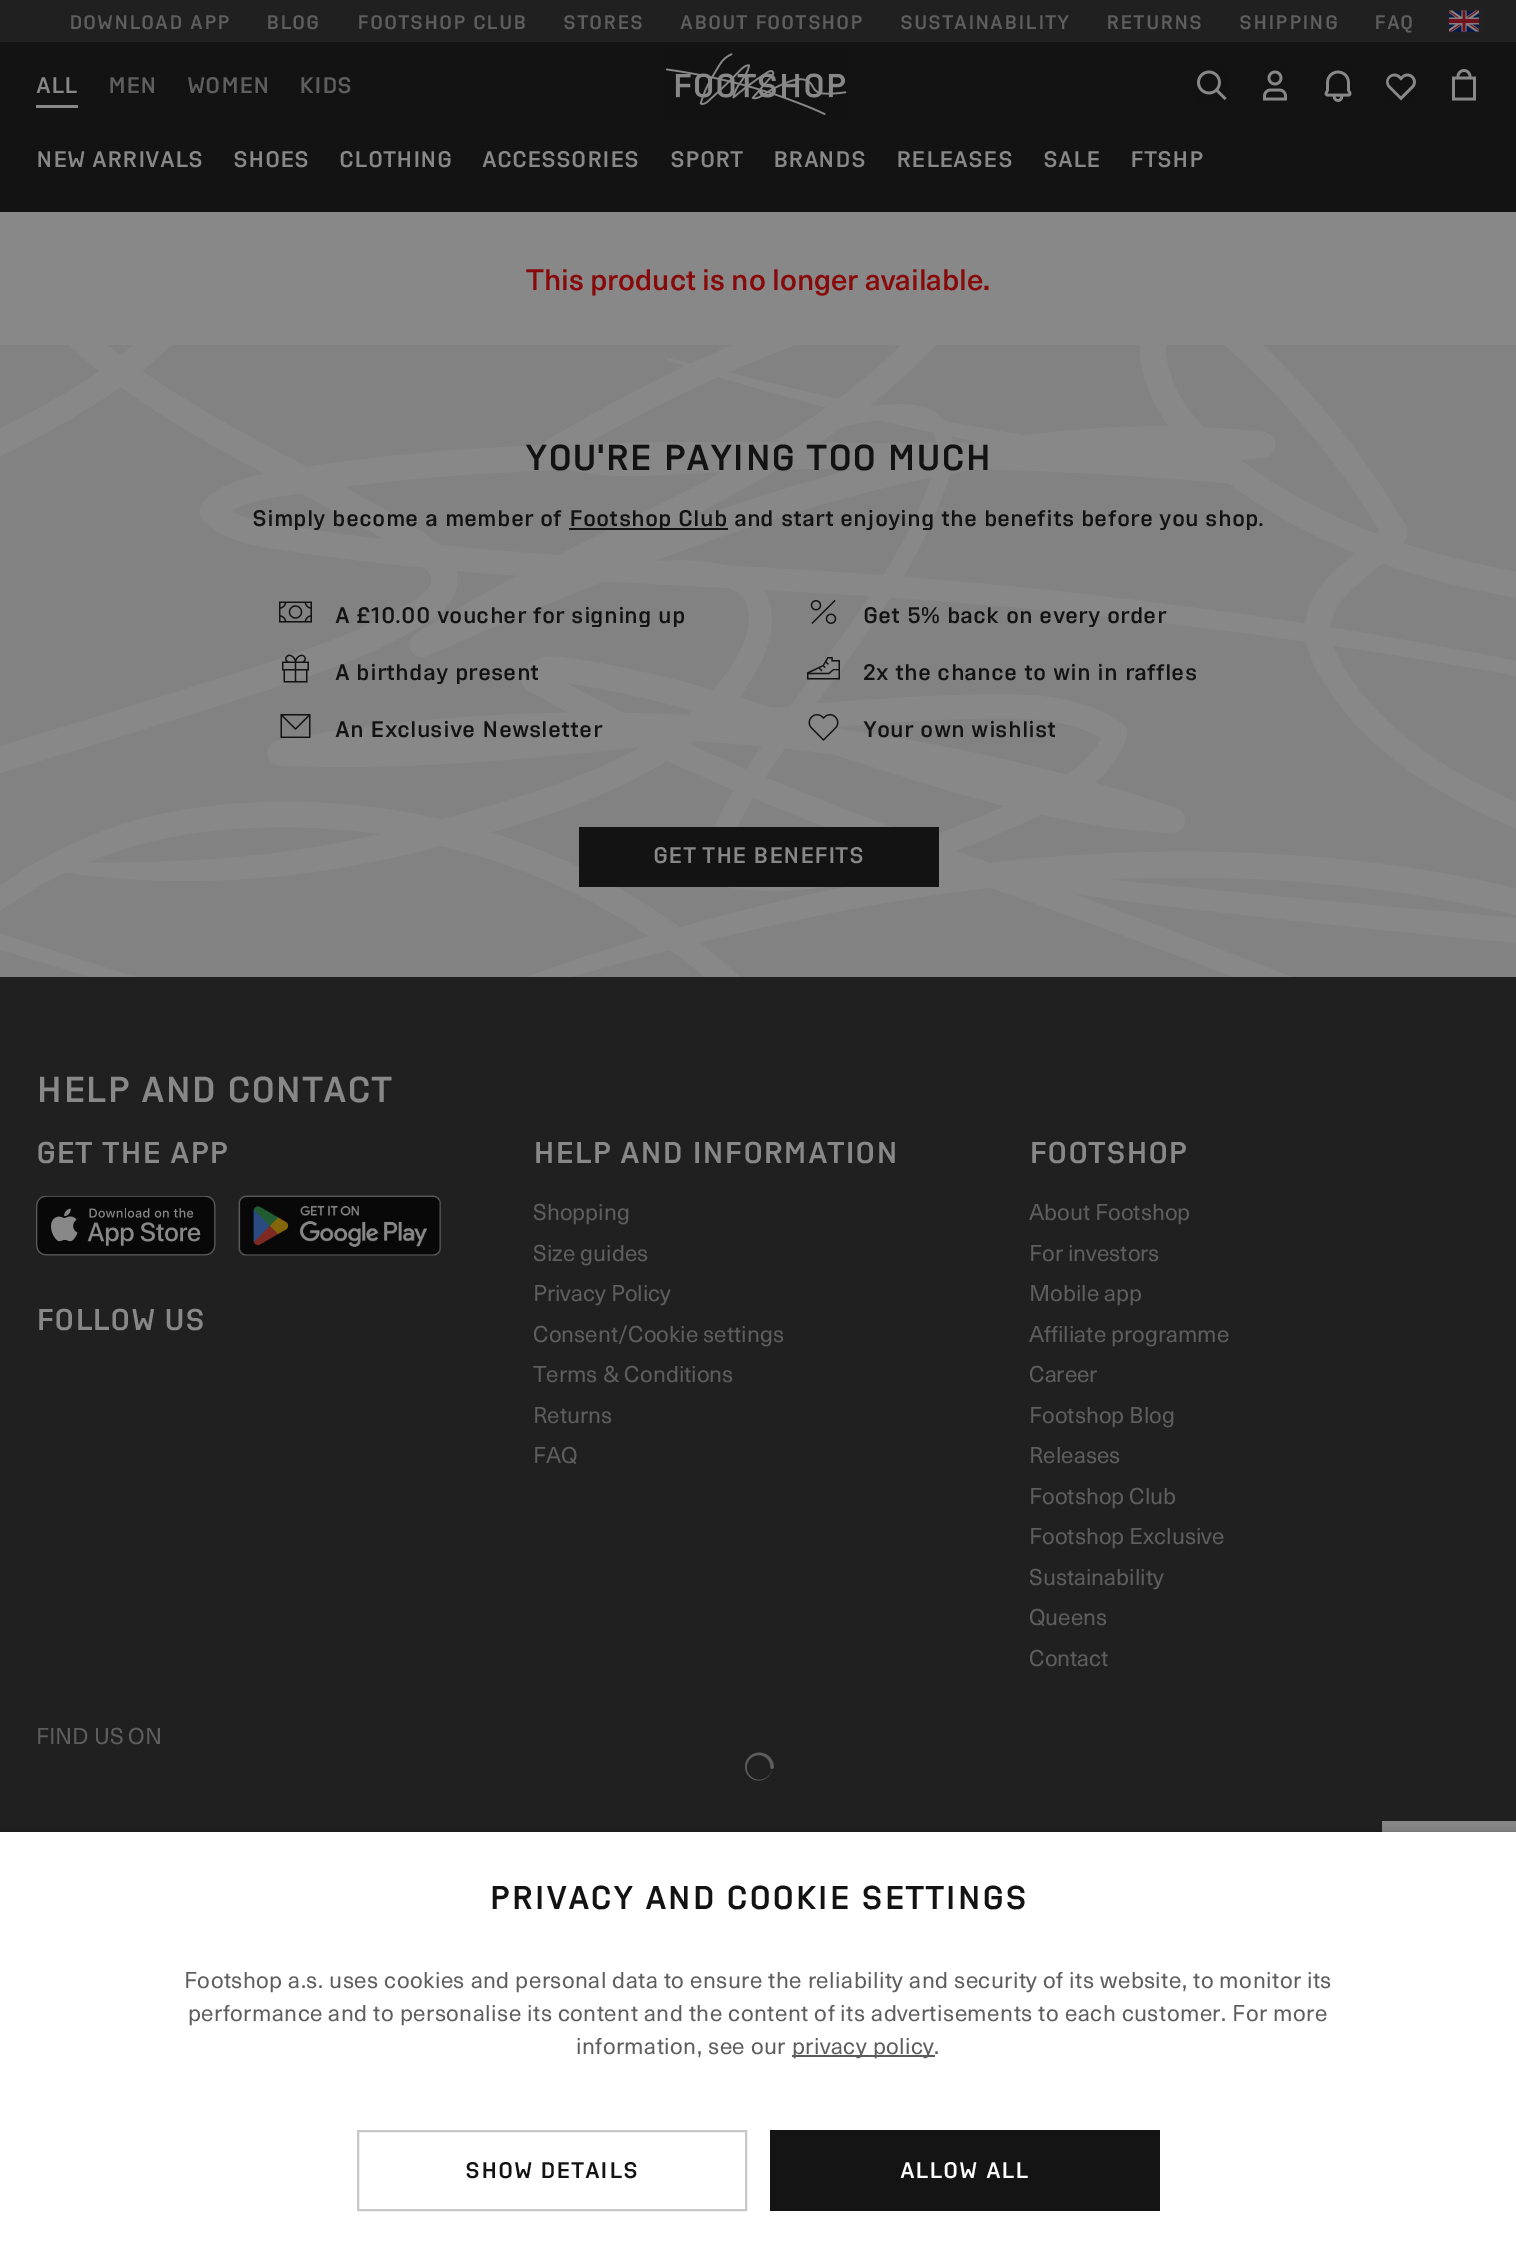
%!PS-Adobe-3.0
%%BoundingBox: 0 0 1516 2256
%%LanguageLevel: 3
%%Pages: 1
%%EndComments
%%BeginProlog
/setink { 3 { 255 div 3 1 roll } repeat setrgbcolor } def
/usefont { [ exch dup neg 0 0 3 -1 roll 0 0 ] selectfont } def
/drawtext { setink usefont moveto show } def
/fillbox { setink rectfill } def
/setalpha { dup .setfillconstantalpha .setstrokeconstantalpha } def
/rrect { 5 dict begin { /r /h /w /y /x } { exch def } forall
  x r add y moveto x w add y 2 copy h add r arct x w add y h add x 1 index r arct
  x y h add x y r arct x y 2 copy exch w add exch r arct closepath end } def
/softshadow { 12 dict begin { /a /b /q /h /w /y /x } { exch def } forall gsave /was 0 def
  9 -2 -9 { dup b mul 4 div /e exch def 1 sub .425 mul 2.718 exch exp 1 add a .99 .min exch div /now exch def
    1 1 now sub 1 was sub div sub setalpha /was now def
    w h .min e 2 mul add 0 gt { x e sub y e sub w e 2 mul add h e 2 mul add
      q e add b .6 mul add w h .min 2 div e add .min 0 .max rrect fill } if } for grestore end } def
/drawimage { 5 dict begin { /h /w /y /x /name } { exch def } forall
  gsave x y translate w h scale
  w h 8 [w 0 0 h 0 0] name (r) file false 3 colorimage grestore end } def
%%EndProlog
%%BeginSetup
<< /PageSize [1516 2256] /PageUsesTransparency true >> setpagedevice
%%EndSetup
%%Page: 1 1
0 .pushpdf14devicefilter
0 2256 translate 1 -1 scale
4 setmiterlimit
0 0 1516 2256 136 136 136 fillbox
0 0 1516 42 32 32 32 fillbox
/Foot-Medium 19.5 usefont
94 94 94 setink
69 29 moveto 0.75 0 (DOWNLOAD APP) ashow
266 29 moveto 0.75 0 (BLOG) ashow
357 29 moveto 0.75 0 (FOOTSHOP CLUB) ashow
563 29 moveto 0.75 0 (STORES) ashow
680 29 moveto 0.75 0 (ABOUT FOOTSHOP) ashow
900 29 moveto 0.75 0 (SUSTAINABILITY) ashow
1106 29 moveto 0.75 0 (RETURNS) ashow
1239 29 moveto 0.75 0 (SHIPPING) ashow
1374 29 moveto 0.75 0 (FAQ) ashow
(assets/img1.rgb) 1448 9 33 24 drawimage
0 42 1516 170 19 19 19 fillbox
(ALL) 36 93 /Foot-Medium 22.5 136 136 136 drawtext
36 105 42 3 136 136 136 fillbox
(MEN) 108 93 /Foot-Medium 22.5 94 94 94 drawtext
(WOMEN) 187 93 /Foot-Medium 22.5 94 94 94 drawtext
(KIDS) 299 93 /Foot-Medium 22.5 94 94 94 drawtext
(assets/img3.rgb) 675 73 171 25 drawimage
(assets/img2.rgb) 665 53 182 62 drawimage
(assets/img4.rgb) 1196 70 31 31 drawimage
(assets/img5.rgb) 1263 70 24 31 drawimage
(assets/img6.rgb) 1324 70 28 32 drawimage
(assets/img7.rgb) 1386 73 30 28 drawimage
(assets/img8.rgb) 1452 69 24 32 drawimage
(NEW ARRIVALS) 36 167 /Foot-Medium 22.5 136 136 136 drawtext
(SHOES) 233 167 /Foot-Medium 22.5 136 136 136 drawtext
(CLOTHING) 339 167 /Foot-Medium 22.5 136 136 136 drawtext
(ACCESSORIES) 482 167 /Foot-Medium 22.5 136 136 136 drawtext
(SPORT) 670 167 /Foot-Medium 22.5 136 136 136 drawtext
(BRANDS) 773 167 /Foot-Medium 22.5 136 136 136 drawtext
(RELEASES) 896 167 /Foot-Medium 22.5 136 136 136 drawtext
(SALE) 1043 167 /Foot-Medium 22.5 136 136 136 drawtext
(FTSHP) 1130 167 /Foot-Medium 22.5 136 136 136 drawtext
(This product is no longer available.) 526 290 /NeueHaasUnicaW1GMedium-Medium 29.25 136 9 9 drawtext
0 345 1516 632 130 130 130 fillbox
(assets/img9.rgb) 0 345 1516 632 drawimage
(YOU'RE PAYING TOO MUCH) 525 470 /Foot-Medium 36 19 19 19 drawtext
(Simply become a member of) 252 526 /Foot-Medium 22.5 19 19 19 drawtext
569 528 159 2 19 19 19 fillbox
(Footshop Club and start enjoying the benefits before you shop.) 569 526 /Foot-Medium 22.5 19 19 19 drawtext
(assets/img10.rgb) 279 601 33 22 drawimage
(A £10.00 voucher for signing up) 335 623 /Foot-Medium 22.5 19 19 19 drawtext
(assets/img11.rgb) 810 599 27 25 drawimage
(Get 5% back on every order) 863 623 /Foot-Medium 22.5 19 19 19 drawtext
(assets/img12.rgb) 282 654 27 29 drawimage
(A birthday present) 335 680 /Foot-Medium 22.5 19 19 19 drawtext
(assets/img13.rgb) 807 657 33 23 drawimage
(2x the chance to win in raffles) 863 680 /Foot-Medium 22.5 19 19 19 drawtext
(assets/img14.rgb) 280 714 31 24 drawimage
(An Exclusive Newsletter) 335 737 /Foot-Medium 22.5 19 19 19 drawtext
(assets/img15.rgb) 808 714 31 27 drawimage
(Your own wishlist) 863 737 /Foot-Medium 22.5 19 19 19 drawtext
579 827 360 60 19 19 19 fillbox
(GET THE BENEFITS) 653 863 /Foot-Medium 22.5 136 136 136 drawtext
0 977 1516 855 32 32 32 fillbox
(HELP AND CONTACT) 36 1102 /Foot-Medium 36 136 136 136 drawtext
(GET THE APP) 36 1163 /Foot-Medium 30 136 136 136 drawtext
(assets/img16.rgb) 36 1196 180 60 drawimage
(assets/img17.rgb) 238 1195 203 61 drawimage
(FOLLOW US) 36 1330 /Foot-Medium 30 136 136 136 drawtext
(HELP AND INFORMATION) 533 1163 /Foot-Medium 30 136 136 136 drawtext
(Shopping) 533 1220 /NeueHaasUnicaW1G-Regular 22.5 94 94 94 drawtext
(Size guides) 533 1261 /NeueHaasUnicaW1G-Regular 22.5 94 94 94 drawtext
(Privacy Policy) 533 1301 /NeueHaasUnicaW1G-Regular 22.5 94 94 94 drawtext
(Consent/Cookie settings) 533 1342 /NeueHaasUnicaW1G-Regular 22.5 94 94 94 drawtext
(Terms & Conditions) 533 1382 /NeueHaasUnicaW1G-Regular 22.5 94 94 94 drawtext
(Returns) 533 1423 /NeueHaasUnicaW1G-Regular 22.5 94 94 94 drawtext
(FAQ) 533 1463 /NeueHaasUnicaW1G-Regular 22.5 94 94 94 drawtext
(FOOTSHOP) 1029 1163 /Foot-Medium 30 136 136 136 drawtext
(About Footshop) 1029 1220 /NeueHaasUnicaW1G-Regular 22.5 94 94 94 drawtext
(For investors) 1029 1261 /NeueHaasUnicaW1G-Regular 22.5 94 94 94 drawtext
(Mobile app) 1029 1301 /NeueHaasUnicaW1G-Regular 22.5 94 94 94 drawtext
(Affiliate programme) 1029 1342 /NeueHaasUnicaW1G-Regular 22.5 94 94 94 drawtext
(Career) 1029 1382 /NeueHaasUnicaW1G-Regular 22.5 94 94 94 drawtext
(Footshop Blog) 1029 1423 /NeueHaasUnicaW1G-Regular 22.5 94 94 94 drawtext
(Releases) 1029 1463 /NeueHaasUnicaW1G-Regular 22.5 94 94 94 drawtext
(Footshop Club) 1029 1504 /NeueHaasUnicaW1G-Regular 22.5 94 94 94 drawtext
(Footshop Exclusive) 1029 1544 /NeueHaasUnicaW1G-Regular 22.5 94 94 94 drawtext
(Sustainability) 1029 1585 /NeueHaasUnicaW1G-Regular 22.5 94 94 94 drawtext
(Queens) 1029 1625 /NeueHaasUnicaW1G-Regular 22.5 94 94 94 drawtext
(Contact) 1029 1666 /NeueHaasUnicaW1G-Regular 22.5 94 94 94 drawtext
(FIND US ON) 36 1744 /NeueHaasUnicaW1G-Regular 22.5 94 94 94 drawtext
(assets/img18.rgb) 745 1752 29 29 drawimage
9 9 9 setink
1379 1821 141 141 0 7 0.1 softshadow
1382 1821 134 11 136 136 136 fillbox
0 0 0 setink
2 1835 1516 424 0 6 0.35 softshadow
0 1832 1516 424 255 255 255 fillbox
/Foot-Medium 33 usefont
19 19 19 setink
489 1909 moveto 0.6 0 (PRIVACY AND COOKIE SETTINGS) ashow
/NeueHaasUnicaW1G-Regular 22.5 usefont
94 94 94 setink
184 1988 moveto 0.45 0 (Footshop a.s. uses cookies and personal data to ensure the reliability and security of its website, to monitor its) ashow
188 2021 moveto 0.45 0 (performance and to personalise its content and the content of its advertisements to each customer. For more) ashow
576 2054 moveto 0.45 0 (information, see our) ashow
792 2055 143 2 90 90 90 fillbox
94 94 94 setink
792 2054 moveto 0.45 0 (privacy policy.) ashow
200 200 200 setink
2 setlinewidth
358 2131 388 79 rectstroke
/Foot-Medium 22.5 usefont
19 19 19 setink
465 2178 moveto 0.6 0 (SHOW DETAILS) ashow
770 2130 390 81 20 20 20 fillbox
255 255 255 setink
900 2178 moveto 0.6 0 (ALLOW ALL) ashow
.poppdf14devicefilter showpage
%%EOF
